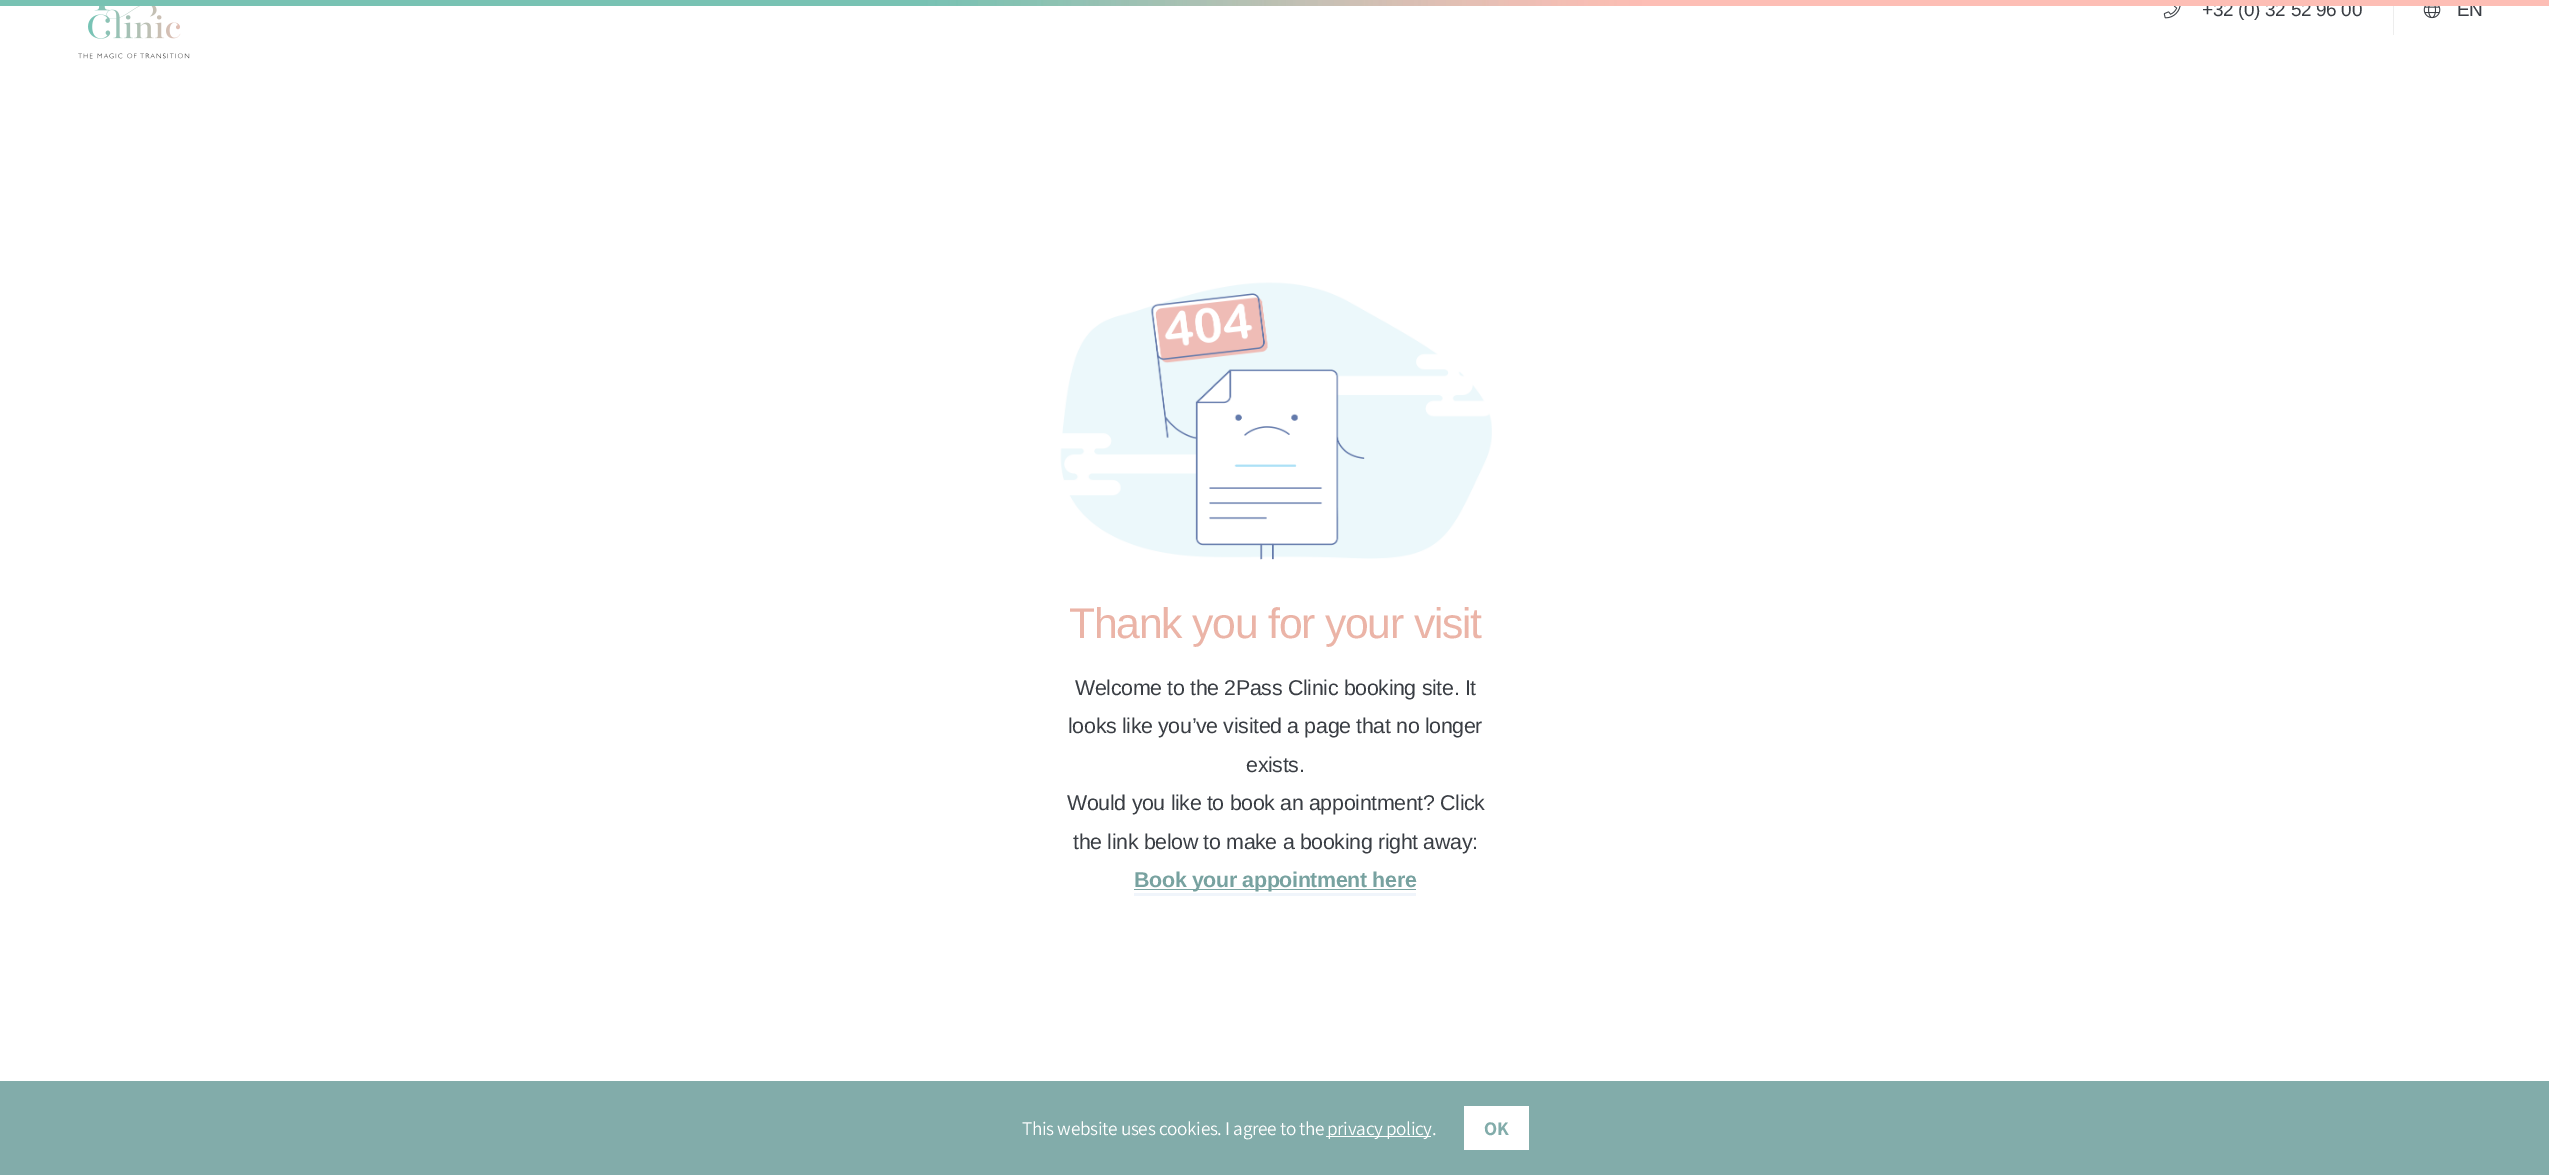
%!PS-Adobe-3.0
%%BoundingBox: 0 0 2549 1175
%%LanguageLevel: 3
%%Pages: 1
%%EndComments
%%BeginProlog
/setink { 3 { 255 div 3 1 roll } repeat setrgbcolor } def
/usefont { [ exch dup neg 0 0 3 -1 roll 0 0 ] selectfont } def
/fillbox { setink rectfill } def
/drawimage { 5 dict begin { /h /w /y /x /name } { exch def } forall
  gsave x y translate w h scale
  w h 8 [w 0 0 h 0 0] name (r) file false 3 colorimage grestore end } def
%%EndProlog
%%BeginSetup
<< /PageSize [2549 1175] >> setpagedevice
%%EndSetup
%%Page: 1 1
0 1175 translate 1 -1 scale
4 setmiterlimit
0 0 2549 1175 255 255 255 fillbox
/LiberationSans-Regular 19 usefont
58 62 68 setink
2202 16 moveto -0.35 0 (+32 \(0\) 32 52 96 00) ashow
2393 0 1 35 237 237 237 fillbox
58 62 68 setink
2457 16 moveto -0.35 0 (EN) ashow
(assets/img1.rgb) 0 0 2549 6 drawimage
(assets/img2.rgb) 78 6 112 53 drawimage
(assets/img3.rgb) 2163 6 18 13 drawimage
(assets/img4.rgb) 2423 6 18 13 drawimage
(assets/img5.rgb) 1060 282 432 278 drawimage
/LiberationSans-Regular 42.75 usefont
235 180 167 setink
1069 638 moveto -1.25 0 (Thank you for your visit) ashow
/LiberationSans-Regular 21.4 usefont
58 62 68 setink
1075 695 moveto -0.35 0 (Welcome to the 2Pass Clinic booking site. It) ashow
1068 733 moveto -0.35 0 (looks like you’ve visited a page that no longer) ashow
1246 772 moveto -0.35 0 (exists.) ashow
1067 810 moveto -0.35 0 (Would you like to book an appointment? Click) ashow
1073 849 moveto -0.35 0 (the link below to make a booking right away:) ashow
1134 889 282 1 120 162 160 fillbox
/LiberationSans-Bold 21.4 usefont
1134 887 moveto -0.35 0 (Book your appointment here) ashow
1134 893 282 3 240 245 251 fillbox
0 1081 2549 94 130 172 170 fillbox
/Assistant-Regular 19.25 usefont
255 255 255 setink
1022 1135 moveto -0.35 0 (This website uses cookies. I agree to the) ashow
1326 1136 105 1 255 255 255 fillbox
1327 1135 moveto -0.35 0 (privacy policy.) ashow
1464 1106 65 44 255 255 255 fillbox
/Assistant-Bold 19.25 usefont
130 172 170 setink
1484 1135 moveto -0.35 0 (OK) ashow
showpage
%%EOF
